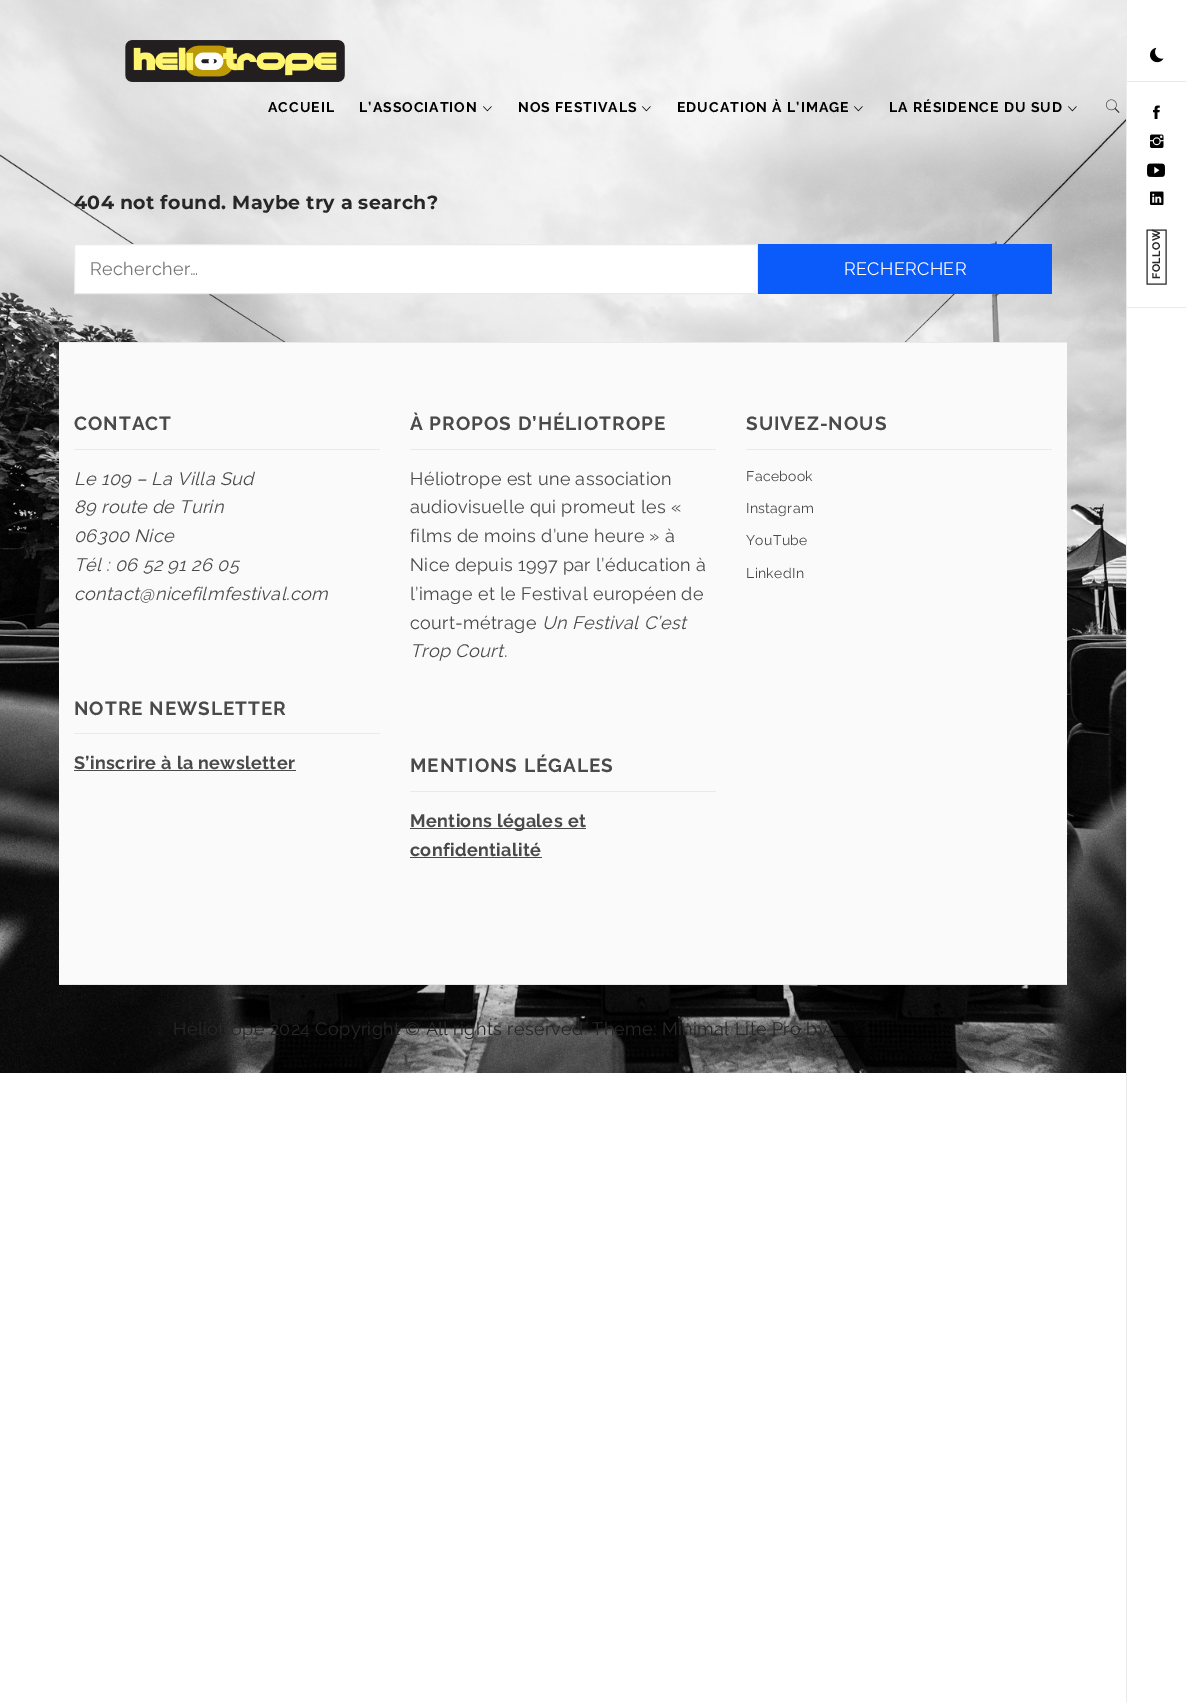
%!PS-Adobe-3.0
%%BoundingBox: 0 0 1186 1702
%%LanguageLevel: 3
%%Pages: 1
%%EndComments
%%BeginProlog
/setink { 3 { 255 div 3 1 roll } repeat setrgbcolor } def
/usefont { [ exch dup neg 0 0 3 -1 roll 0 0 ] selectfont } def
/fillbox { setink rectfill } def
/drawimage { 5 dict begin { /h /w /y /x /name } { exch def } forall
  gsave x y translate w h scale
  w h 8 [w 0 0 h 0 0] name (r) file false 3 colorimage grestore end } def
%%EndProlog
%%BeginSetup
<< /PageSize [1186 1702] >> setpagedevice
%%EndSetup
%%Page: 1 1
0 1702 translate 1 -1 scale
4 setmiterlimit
0 0 1186 1702 255 255 255 fillbox
(assets/img1.rgb) 0 0 1126 1073 drawimage
(assets/img2.rgb) 125 40 220 42 drawimage
/Raleway-Bold 14 usefont
0 0 0 setink
268 112 moveto 1 0 (ACCUEIL) ashow
359 112 moveto 1 0 (L’ASSOCIATION) ashow
(assets/img3.rgb) 483 106 9 6 drawimage
518 112 moveto 1 0 (NOS FESTIVALS) ashow
(assets/img4.rgb) 642 106 9 6 drawimage
677 112 moveto 1 0 (EDUCATION À L’IMAGE) ashow
(assets/img5.rgb) 854 106 9 6 drawimage
889 112 moveto 1 0 (LA RÉSIDENCE DU SUD) ashow
(assets/img6.rgb) 1068 106 9 6 drawimage
(assets/img7.rgb) 1106 99 14 14 drawimage
/Montserrat-Bold 19 usefont
39 39 39 setink
74 209 moveto 0.35 0 (404 not found. Maybe try a search?) ashow
255 255 255 setink
74.5 244.5 moveto 757.5 244.5 lineto 757.5 293.5 lineto 74.5 293.5 lineto closepath gsave fill grestore
234 234 234 setink
stroke
/Raleway-Regular 18 usefont
117 117 117 setink
90 275 moveto 0.35 0 (Rechercher…) ashow
758 244 294 50 11 90 250 fillbox
255 255 255 setink
844 275 moveto 0.35 0 (RECHERCHER) ashow
59 342 1008 1 234 234 234 fillbox
59 343 1008 641 250 250 250 fillbox
74 449 306 1 234 234 234 fillbox
/Raleway-Bold 19 usefont
74 74 74 setink
74 430 moveto 1 0 (CONTACT) ashow
/Raleway-Italic 18 usefont
74 485 moveto 0.35 0 (Le 109 – La Villa Sud) ashow
74 513 moveto 0.35 0 (89 route de Turin) ashow
74 542 moveto 0.35 0 (06300 Nice) ashow
74 571 moveto 0.35 0 (Tél : 06 52 91 26 05) ashow
74 600 moveto 0.35 0 (contact@nicefilmfestival.com) ashow
74 733 306 1 234 234 234 fillbox
/Raleway-Bold 19 usefont
74 74 74 setink
74 715 moveto 1 0 (NOTRE NEWSLETTER) ashow
/Raleway-Bold 18 usefont
74 769 moveto 0.35 0 (S’inscrire à la newsletter) ashow
74 770 222 1 74 74 74 fillbox
410 449 306 1 234 234 234 fillbox
/Raleway-Bold 19 usefont
74 74 74 setink
410 430 moveto 1 0 (À PROPOS D’HÉLIOTROPE) ashow
/Raleway-Regular 18 usefont
410 485 moveto 0.35 0 (Héliotrope est une association) ashow
410 513 moveto 0.35 0 (audiovisuelle qui promeut les «) ashow
410 542 moveto 0.35 0 (films de moins d’une heure » à) ashow
410 571 moveto 0.35 0 (Nice depuis 1997 par l’éducation à) ashow
410 600 moveto 0.35 0 (l’image et le Festival européen de) ashow
410 629 moveto 0.35 0 (court-métrage) ashow
/Raleway-Italic 18 usefont
542 629 moveto 0.35 0 (Un Festival C’est) ashow
410 657 moveto 0.35 0 (Trop Court) ashow
/Raleway-Regular 18 usefont
504 657 moveto 0.35 0 (.) ashow
410 791 306 1 234 234 234 fillbox
/Raleway-Bold 19 usefont
74 74 74 setink
410 772 moveto 1 0 (MENTIONS LÉGALES) ashow
410 828 176 1 74 74 74 fillbox
/Raleway-Bold 18 usefont
410 827 moveto 0.35 0 (Mentions légales et) ashow
410 856 moveto 0.35 0 (confidentialité) ashow
410 857 132 1 74 74 74 fillbox
746 449 306 1 234 234 234 fillbox
/Raleway-Bold 19 usefont
74 74 74 setink
746 430 moveto 1 0 (SUIVEZ-NOUS) ashow
/Raleway-Regular 14 usefont
746 481 moveto 0.35 0 (Facebook) ashow
746 513 moveto 0.35 0 (Instagram) ashow
746 545 moveto 0.35 0 (YouTube) ashow
746 578 moveto 0.35 0 (LinkedIn) ashow
59 984 1008 1 234 234 234 fillbox
/Raleway-Regular 18 usefont
39 39 39 setink
173 1035 moveto 0.35 0 (Héliotrope 2024 Copyright © All rights reserved. Theme: Minimal Lite Pro by) ashow
834 1036 119 1 0 0 0 fillbox
1126 0 1 1702 234 234 234 fillbox
1127 81 59 1 234 234 234 fillbox
(assets/img8.rgb) 1150 47 14 16 drawimage
1127 307 59 1 234 234 234 fillbox
(assets/img9.rgb) 1153 105 7 14 drawimage
(assets/img10.rgb) 1150 134 14 14 drawimage
(assets/img11.rgb) 1147 163 18 14 drawimage
(assets/img12.rgb) 1150 191 14 14 drawimage
39 39 39 setink
1147 284 moveto 1147 230 lineto 1166 230 lineto 1166 284 lineto closepath stroke
/Raleway-Bold 11 usefont
gsave 1160 279 translate -90 rotate 0 0 moveto 0.35 0 (FOLLOW) ashow grestore
showpage
%%EOF
